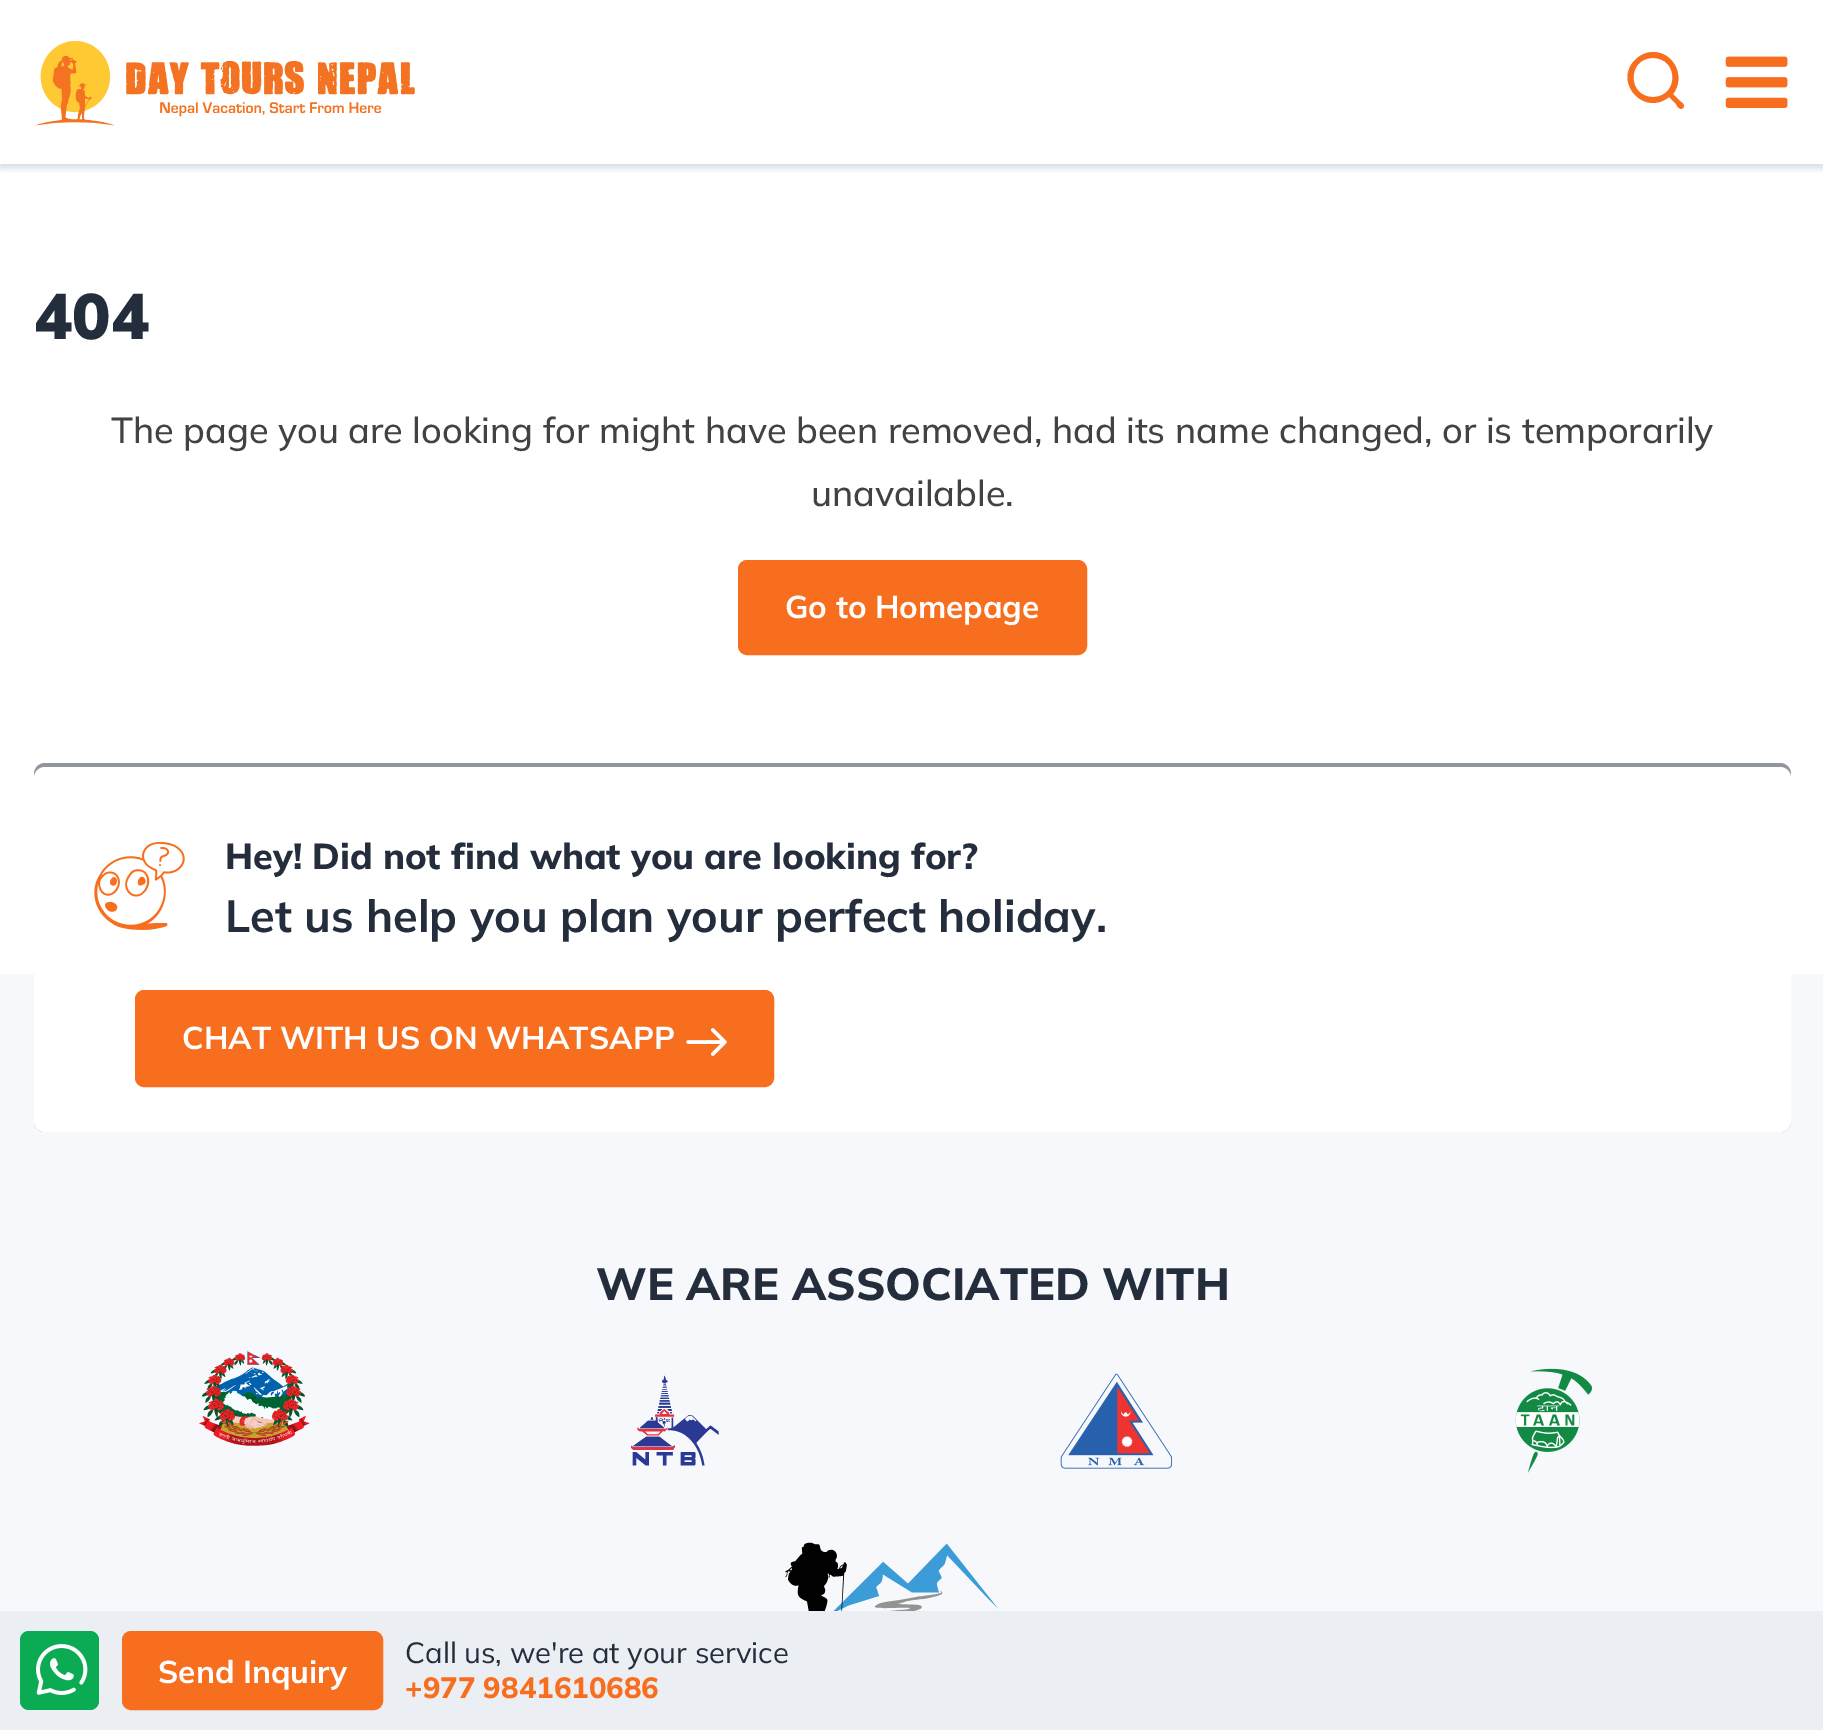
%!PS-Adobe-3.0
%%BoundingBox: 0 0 1823 1730
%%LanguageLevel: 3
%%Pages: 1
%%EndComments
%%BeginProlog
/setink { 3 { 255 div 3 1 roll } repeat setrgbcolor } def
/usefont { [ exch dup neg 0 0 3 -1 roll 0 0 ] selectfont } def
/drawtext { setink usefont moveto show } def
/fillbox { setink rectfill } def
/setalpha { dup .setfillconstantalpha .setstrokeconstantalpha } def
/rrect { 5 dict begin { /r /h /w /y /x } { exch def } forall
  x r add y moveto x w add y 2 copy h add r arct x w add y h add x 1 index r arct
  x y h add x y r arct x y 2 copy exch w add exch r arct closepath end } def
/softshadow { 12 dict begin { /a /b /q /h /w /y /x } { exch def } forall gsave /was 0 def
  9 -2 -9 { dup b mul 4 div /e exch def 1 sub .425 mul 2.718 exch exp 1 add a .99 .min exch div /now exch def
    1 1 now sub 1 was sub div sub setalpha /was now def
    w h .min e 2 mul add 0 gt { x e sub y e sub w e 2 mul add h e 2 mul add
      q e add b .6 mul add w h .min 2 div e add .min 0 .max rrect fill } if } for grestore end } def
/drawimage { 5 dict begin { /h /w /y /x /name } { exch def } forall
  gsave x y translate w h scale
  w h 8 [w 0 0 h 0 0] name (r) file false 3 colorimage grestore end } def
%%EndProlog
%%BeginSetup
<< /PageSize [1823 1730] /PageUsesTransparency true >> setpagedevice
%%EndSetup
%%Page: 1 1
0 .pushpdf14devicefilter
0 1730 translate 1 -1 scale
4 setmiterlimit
0 0 1823 1730 255 255 255 fillbox
gsave
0 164 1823 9 rectclip
6 57 105 setink
0 2 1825 165 0 4.5 0.2 softshadow
grestore
(assets/img1.rgb) 35 41 380 85 drawimage
247 110 31 setink
1653 52 moveto 1646 52 1640 55 1635 60 curveto 1613 82 1644 117 1669 97 curveto 1676 104 lineto 1677 106 1680 111 1683 108 curveto 1686 105 1681 102 1680 101 curveto 1673 94 lineto 1686 77 1674 52 1653 52 curveto closepath 1653 58 moveto 1679 58 1679 97 1653 97 curveto 1627 97 1627 58 1653 58 curveto closepath fill
(assets/img2.rgb) 1725 56 63 52 drawimage
(404) 34 339 /Mulish-Black 64 35 45 60 drawtext
(The page you are looking for might have been removed, had its name changed, or is temporarily) 111 443 /Mulish-Medium 36 66 66 66 drawtext
(unavailable.) 811 506 /Mulish-Medium 36 66 66 66 drawtext
247 110 31 setink
739 561 347 93 8 rrect gsave fill grestore
2 setlinewidth
stroke
(Go to Homepage) 785 618 /Mulish-Bold 31.5 255 255 255 drawtext
0 974 1823 637 246 248 251 fillbox
145 150 157 setink
34 763 1757 369 11 rrect fill
255 255 255 setink
34 767 1757 365 11 rrect fill
(assets/img3.rgb) 94 841 91 89 drawimage
(Hey! Did not find what you are looking for?) 225 869 /Mulish-ExtraBold 36 35 45 60 drawtext
(Let us help you plan your perfect holiday.) 225 932 /Mulish-Bold 45 35 45 60 drawtext
247 110 31 setink
136 991 637 95 8 rrect gsave fill grestore
stroke
(CHAT WITH US ON WHATSAPP) 182 1049 /Mulish-Bold 31.5 255 255 255 drawtext
(assets/img4.rgb) 686 1028 41 28 drawimage
(WE ARE ASSOCIATED WITH) 596 1300 /Mulish-ExtraBold 45 35 45 60 drawtext
(assets/img5.rgb) 199 1351 111 95 drawimage
(assets/img6.rgb) 631 1375 88 91 drawimage
(assets/img7.rgb) 1060 1373 112 96 drawimage
(assets/img8.rgb) 1515 1368 77 105 drawimage
(assets/img9.rgb) 785 1542 214 69 drawimage
0 1611 1823 119 235 238 243 fillbox
11 171 84 setink
20 1631 79 79 9 rrect fill
(assets/img10.rgb) 36 1644 52 51 drawimage
247 110 31 setink
123 1632 259 77 8 rrect gsave fill grestore
stroke
(Send Inquiry) 158 1683 /Mulish-Bold 31.5 255 255 255 drawtext
(Call us, we're at your service) 405 1663 /Mulish-Regular 29.25 35 45 60 drawtext
(+977 9841610686) 405 1698 /Mulish-ExtraBold 29.25 247 110 31 drawtext
.poppdf14devicefilter showpage
%%EOF
